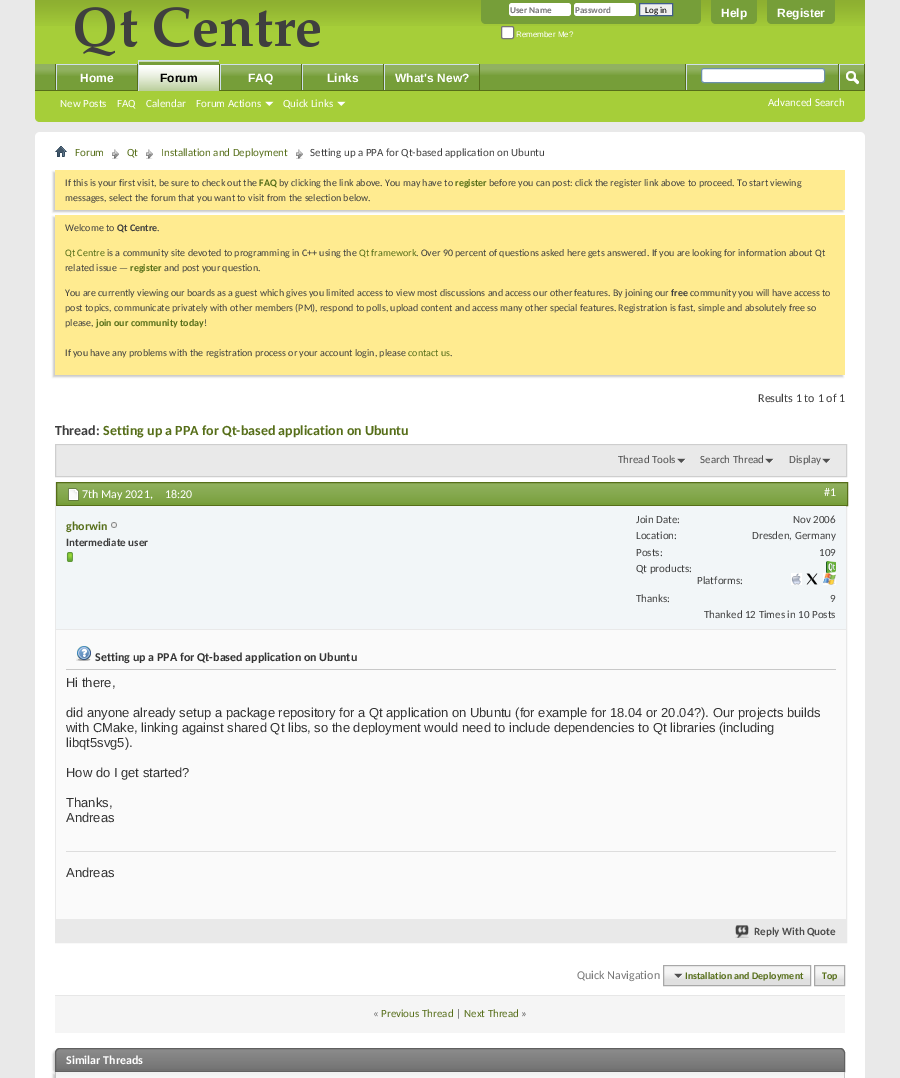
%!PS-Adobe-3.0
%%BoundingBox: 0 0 900 1078
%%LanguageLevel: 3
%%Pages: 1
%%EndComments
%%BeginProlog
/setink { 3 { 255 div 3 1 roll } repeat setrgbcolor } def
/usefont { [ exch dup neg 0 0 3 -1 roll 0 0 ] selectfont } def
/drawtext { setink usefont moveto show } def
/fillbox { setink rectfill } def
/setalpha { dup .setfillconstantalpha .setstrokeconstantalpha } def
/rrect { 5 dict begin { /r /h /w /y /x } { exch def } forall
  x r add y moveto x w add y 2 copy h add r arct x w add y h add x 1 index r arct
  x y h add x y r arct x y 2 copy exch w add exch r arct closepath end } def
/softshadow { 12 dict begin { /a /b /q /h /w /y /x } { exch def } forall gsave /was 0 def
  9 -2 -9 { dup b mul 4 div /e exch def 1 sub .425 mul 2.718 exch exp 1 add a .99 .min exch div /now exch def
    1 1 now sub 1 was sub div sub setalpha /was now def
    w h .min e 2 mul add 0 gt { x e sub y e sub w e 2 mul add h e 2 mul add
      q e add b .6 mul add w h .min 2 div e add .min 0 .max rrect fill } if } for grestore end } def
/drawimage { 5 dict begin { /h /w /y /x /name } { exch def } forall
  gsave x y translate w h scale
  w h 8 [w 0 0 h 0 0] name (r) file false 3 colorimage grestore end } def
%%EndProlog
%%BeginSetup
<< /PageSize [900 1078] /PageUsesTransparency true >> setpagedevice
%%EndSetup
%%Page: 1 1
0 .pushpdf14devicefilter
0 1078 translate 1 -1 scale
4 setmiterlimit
0 0 900 1078 233 233 233 fillbox
166 206 57 setink
35 0 moveto 865 0 lineto 865 117 lineto 865 120 863 122 860 122 curveto 40 122 lineto 37 122 35 120 35 117 curveto closepath fill
(assets/img1.rgb) 35 0 830 26 drawimage
(assets/img2.rgb) 75 7 245 49 drawimage
118 158 57 setink
481 0 moveto 701 0 lineto 701 19 lineto 701 22 699 24 696 24 curveto 486 24 lineto 483 24 481 22 481 19 curveto closepath fill
255 255 255 setink
509 3 62 13 3 rrect fill
(User Name) 510 13 /Carlito-Bold 9 119 119 119 drawtext
255 255 255 setink
574 3 62 13 3 rrect fill
(Password) 575 13 /Carlito-Bold 9 119 119 119 drawtext
239 239 239 setink
639.5 3.5 moveto 672.5 3.5 lineto 672.5 15.5 lineto 639.5 15.5 lineto closepath gsave fill grestore
65 93 141 setink
stroke
(Log in) 645 13 /Carlito-Regular 9 0 0 0 drawtext
255 255 255 setink
501.5 26.5 12 12 1.5 rrect gsave fill grestore
118 118 118 setink
stroke
(Remember Me?) 516 37 /LiberationSans-Regular 8 255 255 255 drawtext
118 158 57 setink
711 0 moveto 757 0 lineto 757 19 lineto 757 22 755 24 752 24 curveto 716 24 lineto 713 24 711 22 711 19 curveto closepath fill
(Help) 721 17 /LiberationSans-Bold 12 255 255 255 drawtext
118 158 57 setink
767 0 moveto 835 0 lineto 835 19 lineto 835 22 833 24 830 24 curveto 772 24 lineto 769 24 767 22 767 19 curveto closepath fill
(Register) 777 17 /LiberationSans-Bold 12 255 255 255 drawtext
35 64 829 26 118 158 57 fillbox
(assets/img3.rgb) 35 64 829 11 drawimage
137 64 1 27 86 110 25 fillbox
55 64 1 27 86 110 25 fillbox
57 65 80 10 118 158 57 fillbox
(assets/img4.rgb) 57 65 80 11 drawimage
56 64 81 1 206 223 235 fillbox
56 64 1 27 206 223 235 fillbox
(Home) 80 82 /LiberationSans-Bold 12 255 255 255 drawtext
219 64 1 26 86 110 25 fillbox
301 64 1 27 86 110 25 fillbox
220 64 81 1 206 223 235 fillbox
220 64 1 27 206 223 235 fillbox
383 64 1 27 86 110 25 fillbox
302 64 81 1 206 223 235 fillbox
302 64 1 27 206 223 235 fillbox
479 64 1 27 86 110 25 fillbox
384 64 95 1 206 223 235 fillbox
384 64 1 27 206 223 235 fillbox
35 90 830 1 86 110 25 fillbox
139 61 80 30 118 158 57 fillbox
(assets/img5.rgb) 139 61 80 30 drawimage
138 60 81 1 206 223 235 fillbox
138 60 1 31 206 223 235 fillbox
(Forum) 160 82 /LiberationSans-Bold 12 0 0 0 drawtext
221 65 80 10 118 158 57 fillbox
(assets/img4.rgb) 221 65 80 11 drawimage
(FAQ) 248 82 /LiberationSans-Bold 12 255 255 255 drawtext
303 65 80 10 118 158 57 fillbox
(assets/img4.rgb) 303 65 80 11 drawimage
(Links) 327 82 /LiberationSans-Bold 12 255 255 255 drawtext
385 65 94 10 118 158 57 fillbox
(assets/img6.rgb) 385 65 94 11 drawimage
(What's New?) 395 82 /LiberationSans-Bold 12 255 255 255 drawtext
(New Posts) 60 107 /Carlito-Regular 11 255 255 255 drawtext
(FAQ) 117 107 /Carlito-Regular 11 255 255 255 drawtext
(Calendar) 146 107 /Carlito-Regular 11 255 255 255 drawtext
(Forum Actions) 196 107 /Carlito-Regular 11 255 255 255 drawtext
(assets/img7.rgb) 265 101 9 5 drawimage
(Quick Links) 283 107 /Carlito-Regular 11 255 255 255 drawtext
(assets/img7.rgb) 337 101 9 5 drawimage
685 64 1 26 86 110 25 fillbox
686 64 152 1 206 223 235 fillbox
686 64 1 26 206 223 235 fillbox
255 255 255 setink
701.5 68.5 123 14 2.5 rrect gsave fill grestore
107 145 171 setink
stroke
864 64 1 26 86 110 25 fillbox
838 64 1 26 86 110 25 fillbox
839 64 25 1 206 223 235 fillbox
839 64 1 26 206 223 235 fillbox
(assets/img8.rgb) 846 71 13 14 drawimage
(Advanced Search) 768 106 /Carlito-Regular 11 255 255 255 drawtext
35 132 830 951 5 rrect fill
(assets/img9.rgb) 55 146 12 11 drawimage
(assets/img10.rgb) 112 149 7 10 drawimage
(Forum) 75 156 /Carlito-Regular 11 86 110 25 drawtext
(assets/img10.rgb) 146 149 7 10 drawimage
(Qt) 127 156 /Carlito-Regular 11 86 110 25 drawtext
(assets/img10.rgb) 296 149 7 10 drawimage
(Installation and Deployment) 161 156 /Carlito-Regular 11 86 110 25 drawtext
(Setting up a PPA for Qt-based application on Ubuntu) 310 156 /Carlito-Regular 11 62 62 62 drawtext
200 200 200 setink
53 172 790 40 0 1 1 softshadow
55 170 790 40 255 235 144 fillbox
(If this is your first visit, be sure to check out the) 65 186 /Carlito-Regular 10 62 62 62 drawtext
(FAQ) 259 186 /Carlito-Bold 10 86 110 25 drawtext
(by clicking the link above. You may have to) 279 186 /Carlito-Regular 10 62 62 62 drawtext
(register) 455 186 /Carlito-Bold 10 86 110 25 drawtext
(before you can post: click the register link above to proceed. To start viewing) 489 186 /Carlito-Regular 10 62 62 62 drawtext
(messages, select the forum that you want to visit from the selection below.) 65 201 /Carlito-Regular 10 62 62 62 drawtext
200 200 200 setink
53 217 790 160 0 1 1 softshadow
55 215 790 160 255 235 144 fillbox
(Welcome to) 65 231 /Carlito-Regular 10 62 62 62 drawtext
(Qt Centre) 117 231 /Carlito-Bold 10 62 62 62 drawtext
(.) 157 231 /Carlito-Regular 10 62 62 62 drawtext
(Qt Centre) 65 256 /Carlito-Regular 10 86 110 25 drawtext
(is a community site devoted to programming in C++ using the) 107 256 /Carlito-Regular 10 62 62 62 drawtext
(Qt framework) 359 256 /Carlito-Regular 10 86 110 25 drawtext
(. Over 90 percent of questions asked here gets answered. If you are looking for information about Qt) 416 256 /Carlito-Regular 10 62 62 62 drawtext
(related issue —) 65 271 /Carlito-Regular 10 62 62 62 drawtext
(register) 130 271 /Carlito-Bold 10 86 110 25 drawtext
(and post your question.) 164 271 /Carlito-Regular 10 62 62 62 drawtext
(You are currently viewing our boards as a guest which gives you limited access to view most discussions and access our other features. By joining our) 65 296 /Carlito-Regular 10 62 62 62 drawtext
(free) 671 296 /Carlito-Bold 10 62 62 62 drawtext
(community you will have access to) 690 296 /Carlito-Regular 10 62 62 62 drawtext
(post topics, communicate privately with other members \(PM\), respond to polls, upload content and access many other special features. Registration is fast, simple and absolutely free so) 65 311 /Carlito-Regular 10 62 62 62 drawtext
(please,) 65 326 /Carlito-Regular 10 62 62 62 drawtext
(join our community today) 96 326 /Carlito-Bold 10 86 110 25 drawtext
(!) 204 326 /Carlito-Regular 10 62 62 62 drawtext
(If you have any problems with the registration process or your account login, please) 65 356 /Carlito-Regular 10 62 62 62 drawtext
(contact us) 408 356 /Carlito-Regular 10 86 110 25 drawtext
(.) 450 356 /Carlito-Regular 10 62 62 62 drawtext
(Results 1 to 1 of 1) 758 402 /Carlito-Regular 12 62 62 62 drawtext
(Thread:) 55 435 /Carlito-Bold 14 62 62 62 drawtext
(Setting up a PPA for Qt-based application on Ubuntu) 103 435 /Carlito-Bold 14 86 110 25 drawtext
56 446 790 30 233 233 233 fillbox
55 445 792 1 237 237 237 fillbox
206 206 206 setink
55.5 444.5 791 32 rectstroke
(assets/img11.rgb) 677 458 9 5 drawimage
(Thread Tools) 618 463 /Carlito-Regular 11 78 78 78 drawtext
(assets/img11.rgb) 765 458 9 5 drawimage
(Search Thread) 700 463 /Carlito-Regular 11 78 78 78 drawtext
(assets/img11.rgb) 822 458 9 5 drawimage
(Display) 789 463 /Carlito-Regular 11 78 78 78 drawtext
233 233 233 setink
55.5 482.5 791 460 rectstroke
57 483 790 22 118 158 57 fillbox
(assets/img12.rgb) 57 483 790 20 drawimage
86 110 25 setink
56.5 482.5 791 23 rectstroke
(assets/img13.rgb) 68 488 11 13 drawimage
(7th May 2021,) 82 498 /Carlito-Regular 12 255 255 255 drawtext
(18:20) 165 498 /Carlito-Regular 12 255 255 255 drawtext
(#1) 824 496 /Carlito-Regular 12 255 255 255 drawtext
56 506 790 123 242 246 248 fillbox
56 629 790 1 233 233 233 fillbox
(ghorwin) 66 530 /Carlito-Bold 12 86 110 25 drawtext
(assets/img14.rgb) 111 522 6 6 drawimage
(Intermediate user) 66 546 /Carlito-Bold 11 62 62 62 drawtext
(assets/img15.rgb) 66 552 7 10 drawimage
(Join Date:) 636 523 /Carlito-Regular 11 62 62 62 drawtext
(Nov 2006) 793 523 /Carlito-Regular 11 62 62 62 drawtext
(Location:) 636 539 /Carlito-Regular 11 62 62 62 drawtext
(Dresden, Germany) 752 539 /Carlito-Regular 11 62 62 62 drawtext
(Posts:) 636 556 /Carlito-Regular 11 62 62 62 drawtext
(109) 819 556 /Carlito-Regular 11 62 62 62 drawtext
(Qt products:) 636 572 /Carlito-Regular 11 62 62 62 drawtext
(assets/img16.rgb) 826 561 10 12 drawimage
(Platforms:) 697 584 /Carlito-Regular 11 62 62 62 drawtext
(assets/img17.rgb) 791 573 11 12 drawimage
(assets/img18.rgb) 806 573 12 12 drawimage
(assets/img19.rgb) 823 573 13 12 drawimage
(Thanks:) 636 602 /Carlito-Regular 11 62 62 62 drawtext
(9) 830 602 /Carlito-Regular 11 62 62 62 drawtext
(Thanked 12 Times in 10 Posts) 704 618 /Carlito-Regular 11 62 62 62 drawtext
56 630 790 289 250 250 250 fillbox
66 669 770 1 200 200 200 fillbox
(assets/img20.rgb) 76 646 15 15 drawimage
(Setting up a PPA for Qt-based application on Ubuntu) 95 661 /Carlito-Bold 12 51 51 51 drawtext
(Hi there,) 66 687 /LiberationSans-Regular 13 51 51 51 drawtext
(did anyone already setup a package repository for a Qt application on Ubuntu \(for example for 18.04 or 20.04?\). Our projects builds) 66 717 /LiberationSans-Regular 13 51 51 51 drawtext
(with CMake, linking against shared Qt libs, so the deployment would need to include dependencies to Qt libraries \(including) 66 732 /LiberationSans-Regular 13 51 51 51 drawtext
(libqt5svg5\).) 66 747 /LiberationSans-Regular 13 51 51 51 drawtext
(How do I get started?) 66 777 /LiberationSans-Regular 13 51 51 51 drawtext
(Thanks,) 66 807 /LiberationSans-Regular 13 51 51 51 drawtext
(Andreas) 66 822 /LiberationSans-Regular 13 51 51 51 drawtext
66 851 770 1 221 221 221 fillbox
(Andreas) 66 877 /LiberationSans-Regular 13 51 51 51 drawtext
56 919 790 23 233 233 233 fillbox
(assets/img21.rgb) 735 925 14 13 drawimage
(Reply With Quote) 754 935 /Carlito-Bold 11 78 78 78 drawtext
(Quick Navigation) 577 979 /Carlito-Regular 12 119 119 119 drawtext
664 966 146 19 224 224 224 fillbox
(assets/img22.rgb) 664 966 146 13 drawimage
815 966 29 19 224 224 224 fillbox
(assets/img23.rgb) 815 966 29 13 drawimage
168 168 168 setink
663.5 965.5 147 20 rectstroke
(assets/img24.rgb) 674 973 9 6 drawimage
(Installation and Deployment) 685 979 /Carlito-Bold 10 86 110 25 drawtext
168 168 168 setink
814.5 965.5 30 20 rectstroke
(Top) 822 979 /Carlito-Bold 10 86 110 25 drawtext
55 996 790 37 245 245 245 fillbox
55 995 790 1 231 231 231 fillbox
(«) 373 1017 /Carlito-Regular 11 93 93 93 drawtext
(Previous Thread) 381 1017 /Carlito-Regular 11 86 110 25 drawtext
(|) 456 1017 /Carlito-Regular 11 93 93 93 drawtext
(Next Thread) 464 1017 /Carlito-Regular 11 86 110 25 drawtext
(») 521 1017 /Carlito-Regular 11 93 93 93 drawtext
200 200 200 setink
53 1050 790 24 5 1 1 softshadow
112 112 112 setink
60 1048 moveto 840 1048 lineto 843 1048 845 1050 845 1053 curveto 845 1072 lineto 55 1072 lineto 55 1053 lineto 55 1050 57 1048 60 1048 curveto closepath fill
(assets/img25.rgb) 55 1049 790 20 drawimage
96 96 96 setink
60 1048.5 moveto 840 1048.5 lineto 842.5 1048.5 844.5 1050.5 844.5 1053 curveto 844.5 1071.5 lineto 55.5 1071.5 lineto 55.5 1053 lineto 55.5 1050.5 57.5 1048.5 60 1048.5 curveto closepath stroke
(Similar Threads) 66 1064 /Carlito-Bold 12 255 255 255 drawtext
200 200 200 setink
53 1074 790 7 0 1 1 softshadow
55 1072 790 6 255 255 255 fillbox
(assets/img26.rgb) 56 1072 788 6 drawimage
844 1072 1 6 196 196 196 fillbox
55 1072 1 6 196 196 196 fillbox
.poppdf14devicefilter showpage
%%EOF
